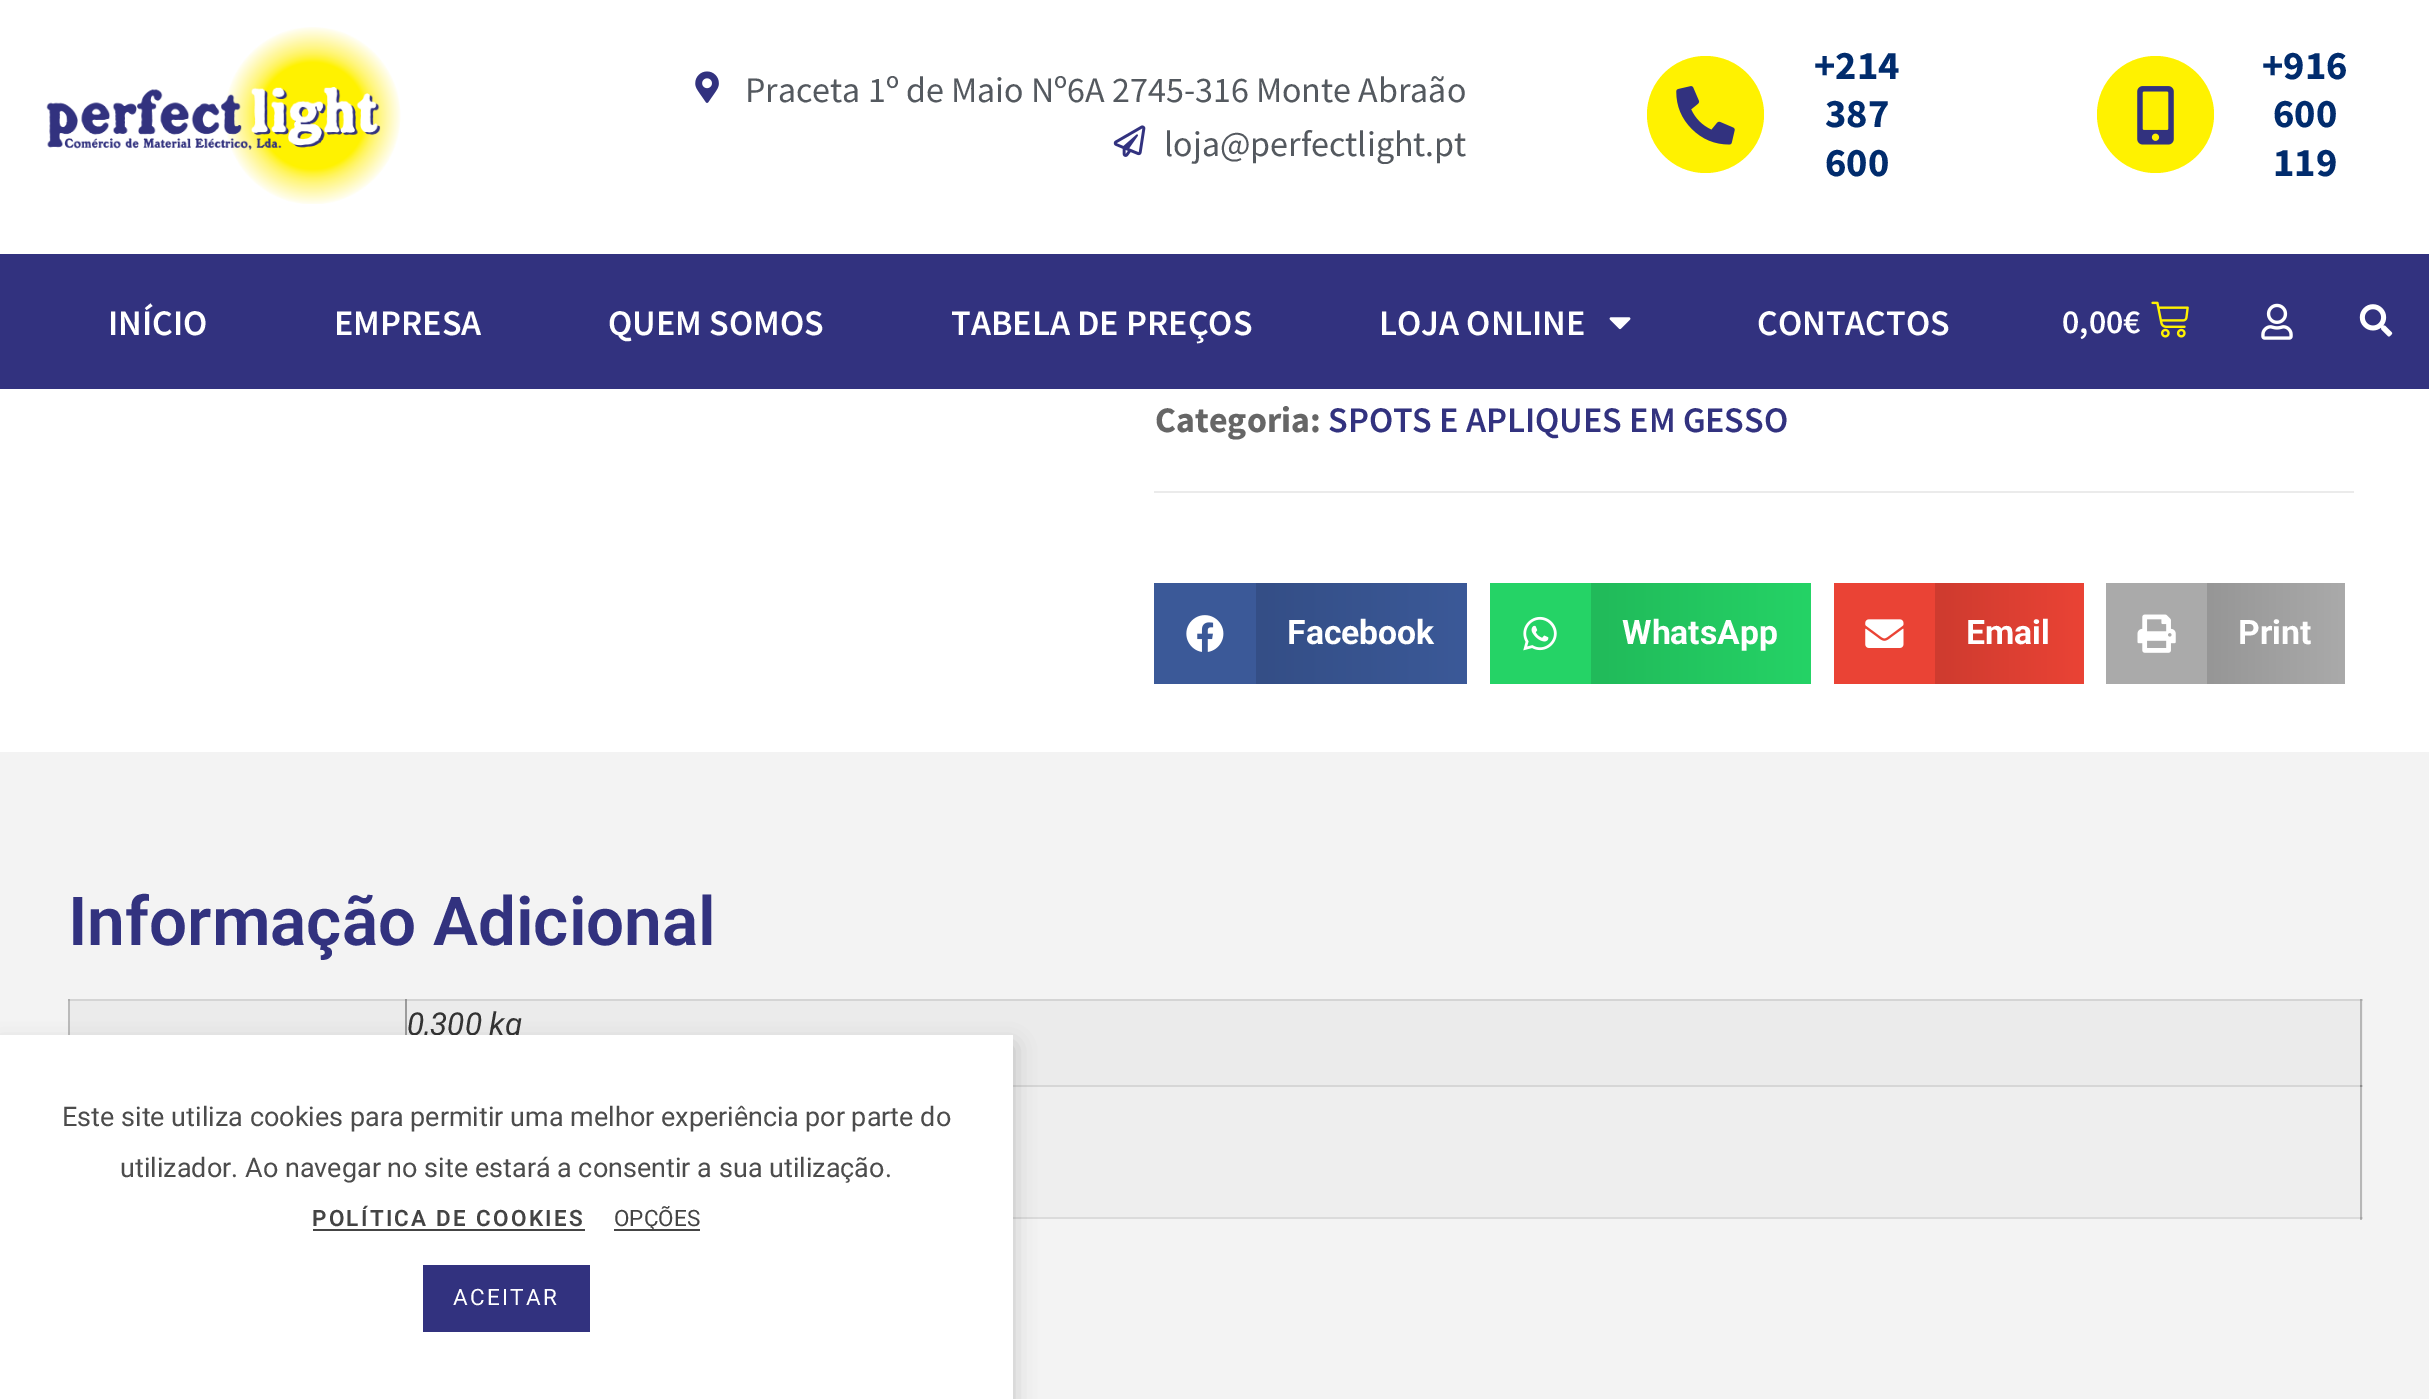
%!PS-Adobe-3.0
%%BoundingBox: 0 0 2429 1399
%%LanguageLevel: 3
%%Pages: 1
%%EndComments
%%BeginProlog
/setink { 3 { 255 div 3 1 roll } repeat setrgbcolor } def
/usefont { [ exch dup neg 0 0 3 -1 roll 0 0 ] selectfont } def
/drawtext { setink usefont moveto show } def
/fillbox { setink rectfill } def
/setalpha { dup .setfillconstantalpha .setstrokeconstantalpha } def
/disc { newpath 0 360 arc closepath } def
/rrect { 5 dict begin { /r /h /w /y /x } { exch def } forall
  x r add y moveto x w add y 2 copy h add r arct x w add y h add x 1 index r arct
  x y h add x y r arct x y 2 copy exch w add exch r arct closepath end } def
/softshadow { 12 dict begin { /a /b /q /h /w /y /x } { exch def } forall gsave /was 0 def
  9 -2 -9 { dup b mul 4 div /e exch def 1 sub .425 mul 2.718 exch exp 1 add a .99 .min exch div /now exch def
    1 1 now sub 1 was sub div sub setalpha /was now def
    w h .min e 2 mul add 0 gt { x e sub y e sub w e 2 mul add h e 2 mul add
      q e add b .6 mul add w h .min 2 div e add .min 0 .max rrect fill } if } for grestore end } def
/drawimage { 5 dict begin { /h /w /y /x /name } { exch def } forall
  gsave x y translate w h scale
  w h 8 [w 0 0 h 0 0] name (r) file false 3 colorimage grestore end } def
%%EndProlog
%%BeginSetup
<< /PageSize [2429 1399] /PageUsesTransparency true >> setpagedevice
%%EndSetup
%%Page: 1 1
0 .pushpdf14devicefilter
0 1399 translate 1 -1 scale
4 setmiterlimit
0 0 2429 1399 255 255 255 fillbox
(assets/img1.rgb) 46 27 355 177 drawimage
(assets/img2.rgb) 695 71 24 32 drawimage
(Praceta 1º de Maio Nº6A 2745-316 Monte Abraão) 745 102 /SourceSansPro-Regular 36 84 89 95 drawtext
(assets/img3.rgb) 1113 125 33 32 drawimage
(loja@perfectlight.pt) 1164 156 /SourceSansPro-Regular 36 84 89 95 drawtext
255 242 0 setink
1705.5 114.5 58.5 disc fill
(assets/img4.rgb) 1676 86 59 59 drawimage
(+214) 1814 79 /SourceSansPro-Bold 40.5 1 44 109 drawtext
(387) 1825 127 /SourceSansPro-Bold 40.5 1 44 109 drawtext
(600) 1825 176 /SourceSansPro-Bold 40.5 1 44 109 drawtext
255 242 0 setink
2155.5 114.5 58.5 disc fill
(assets/img5.rgb) 2137 86 37 59 drawimage
(+916) 2262 79 /SourceSansPro-Bold 40.5 1 44 109 drawtext
(600) 2273 127 /SourceSansPro-Bold 40.5 1 44 109 drawtext
(119) 2273 176 /SourceSansPro-Bold 40.5 1 44 109 drawtext
0 254 2429 135 50 50 127 fillbox
(INÍCIO) 108 335 /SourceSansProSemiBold-SemiBold 36 255 255 255 drawtext
(EMPRESA) 334 335 /SourceSansProSemiBold-SemiBold 36 255 255 255 drawtext
(QUEM SOMOS) 608 335 /SourceSansProSemiBold-SemiBold 36 255 255 255 drawtext
(TABELA DE PREÇOS) 951 335 /SourceSansProSemiBold-SemiBold 36 255 255 255 drawtext
(LOJA ONLINE) 1379 335 /SourceSansProSemiBold-SemiBold 36 255 255 255 drawtext
(assets/img6.rgb) 1609 317 22 13 drawimage
(CONTACTOS) 1757 335 /SourceSansProSemiBold-SemiBold 36 255 255 255 drawtext
(0,00€) 2062 333 /SourceSansProSemiBold-SemiBold 33.75 255 255 255 drawtext
(assets/img7.rgb) 2151 301 38 37 drawimage
(assets/img8.rgb) 2261 303 32 37 drawimage
(assets/img9.rgb) 2359 304 34 33 drawimage
1154 491 1200 2 235 235 235 fillbox
(Categoria:) 1155 432 /SourceSansPro-Bold 36 102 102 102 drawtext
(SPOTS E APLIQUES EM GESSO) 1328 432 /SourceSansProSemiBold-SemiBold 36 50 50 127 drawtext
1154 583 102 101 59 89 152 fillbox
(assets/img10.rgb) 1186 615 38 37 drawimage
gsave 1256 583 moveto 1467 583 lineto 1467 684 lineto 1256 684 lineto closepath clip newpath
<< /ShadingType 2 /ColorSpace /DeviceRGB /Coords [1256 633 1467 633] /Extend [true true] /Function << /FunctionType 2 /Domain [0 1] /C0 [0.204 0.306 0.525] /C1 [0.231 0.349 0.596] /N 1 >> >> shfill grestore
(Facebook) 1287 644 /Roboto-Bold 33.75 255 255 255 drawtext
1490 583 101 101 37 211 102 fillbox
(assets/img11.rgb) 1523 616 34 35 drawimage
gsave 1591 583 moveto 1811 583 lineto 1811 684 lineto 1591 684 lineto closepath clip newpath
<< /ShadingType 2 /ColorSpace /DeviceRGB /Coords [1591 633 1811 633] /Extend [true true] /Function << /FunctionType 2 /Domain [0 1] /C0 [0.129 0.729 0.353] /C1 [0.145 0.827 0.4] /N 1 >> >> shfill grestore
(WhatsApp) 1622 644 /Roboto-Bold 33.75 255 255 255 drawtext
1834 583 101 101 234 67 53 fillbox
(assets/img12.rgb) 1865 619 39 29 drawimage
gsave 1935 583 moveto 2084 583 lineto 2084 684 lineto 1935 684 lineto closepath clip newpath
<< /ShadingType 2 /ColorSpace /DeviceRGB /Coords [1935 633 2084 633] /Extend [true true] /Function << /FunctionType 2 /Domain [0 1] /C0 [0.808 0.231 0.184] /C1 [0.918 0.263 0.208] /N 1 >> >> shfill grestore
(Email) 1966 644 /Roboto-Bold 33.75 255 255 255 drawtext
2106 583 101 101 170 170 170 fillbox
(assets/img13.rgb) 2137 614 39 39 drawimage
gsave 2207 583 moveto 2345 583 lineto 2345 684 lineto 2207 684 lineto closepath clip newpath
<< /ShadingType 2 /ColorSpace /DeviceRGB /Coords [2207 633 2345 633] /Extend [true true] /Function << /FunctionType 2 /Domain [0 1] /C0 [0.588 0.588 0.588] /C1 [0.667 0.667 0.667] /N 1 >> >> shfill grestore
(Print) 2238 644 /Roboto-Bold 33.75 255 255 255 drawtext
0 752 2429 647 243 243 243 fillbox
68 999 2 36 186 186 186 fillbox
1013 1217 1350 2 219 219 219 fillbox
2360 1219 2 1 186 186 186 fillbox
2360 1217 2 2 167 167 167 fillbox
68 999 2 2 174 174 174 fillbox
(Informação Adicional) 68 945 /Roboto-SemiBold 67.5 50 50 127 drawtext
70 1001 335 34 235 235 235 fillbox
405 999 2 36 155 155 155 fillbox
70 999 337 2 212 212 212 fillbox
405 999 2 2 149 149 149 fillbox
407 1001 1956 84 235 235 235 fillbox
2360 999 2 86 182 182 182 fillbox
407 999 1956 2 212 212 212 fillbox
2360 999 2 2 170 170 170 fillbox
(0,300 kg) 407 1035 /Roboto-Italic 31.5 51 51 51 drawtext
1013 1087 1350 130 238 238 238 fillbox
1013 1085 1350 2 214 214 214 fillbox
2360 1085 2 132 183 183 183 fillbox
2360 1085 2 2 140 140 140 fillbox
0 0 0 setink
0 1046 1013 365 0 11 0.2 softshadow
0 1035 1013 364 255 255 255 fillbox
(Este site utiliza cookies para permitir uma melhor experiência por parte do) 62 1126 /Roboto-Regular 27 76 76 76 drawtext
(utilizador. Ao navegar no site estará a consentir a sua utilização.) 120 1177 /Roboto-Regular 27 76 76 76 drawtext
/Roboto-SemiBold 22.5 usefont
68 68 68 setink
312 1226 moveto 2.25 0 (POLÍTICA DE COOKIES) ashow
313 1229 272 2 68 68 68 fillbox
614 1229 86 2 68 68 68 fillbox
(OPÇÕES) 614 1226 /Roboto-Regular 22.5 68 68 68 drawtext
423 1265 167 67 50 50 127 fillbox
255 255 255 setink
453 1305 moveto 2.25 0 (ACEITAR) ashow
.poppdf14devicefilter showpage
%%EOF
